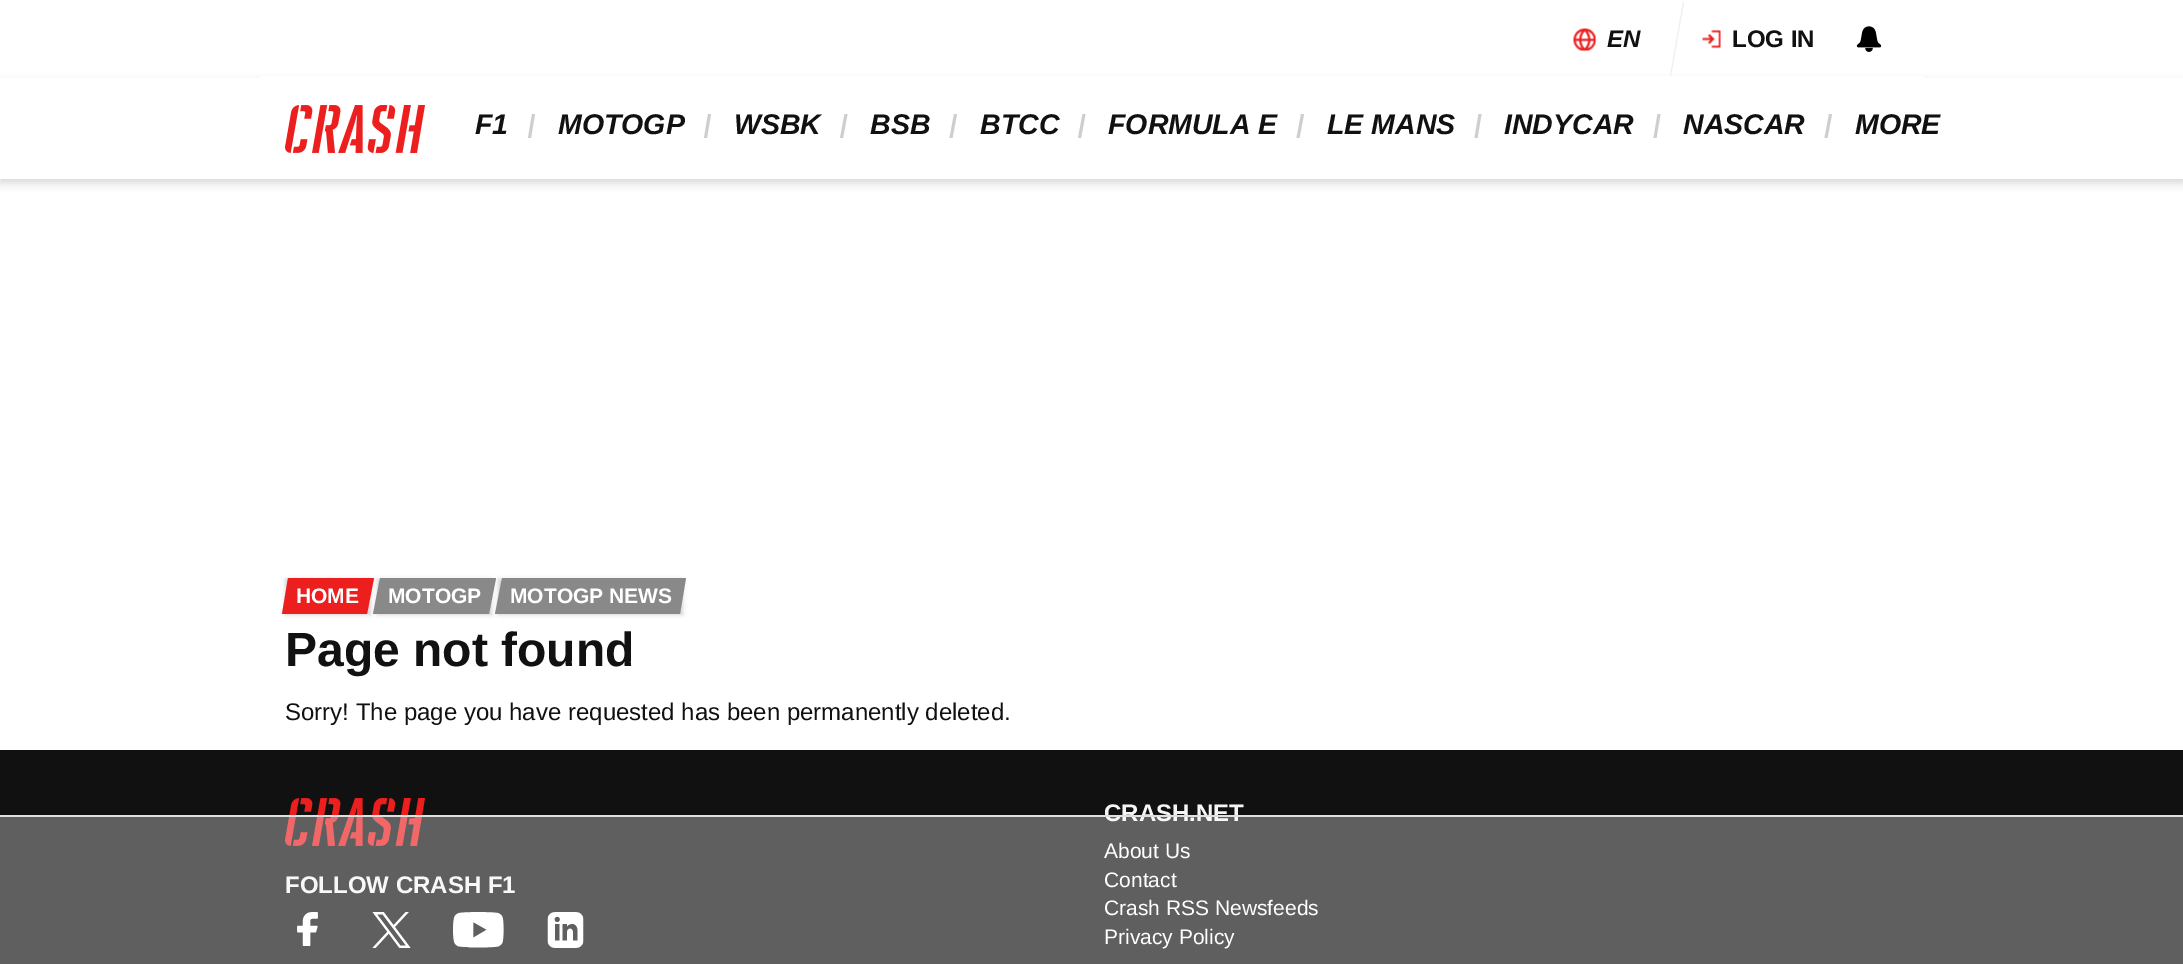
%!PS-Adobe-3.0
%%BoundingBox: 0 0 2183 964
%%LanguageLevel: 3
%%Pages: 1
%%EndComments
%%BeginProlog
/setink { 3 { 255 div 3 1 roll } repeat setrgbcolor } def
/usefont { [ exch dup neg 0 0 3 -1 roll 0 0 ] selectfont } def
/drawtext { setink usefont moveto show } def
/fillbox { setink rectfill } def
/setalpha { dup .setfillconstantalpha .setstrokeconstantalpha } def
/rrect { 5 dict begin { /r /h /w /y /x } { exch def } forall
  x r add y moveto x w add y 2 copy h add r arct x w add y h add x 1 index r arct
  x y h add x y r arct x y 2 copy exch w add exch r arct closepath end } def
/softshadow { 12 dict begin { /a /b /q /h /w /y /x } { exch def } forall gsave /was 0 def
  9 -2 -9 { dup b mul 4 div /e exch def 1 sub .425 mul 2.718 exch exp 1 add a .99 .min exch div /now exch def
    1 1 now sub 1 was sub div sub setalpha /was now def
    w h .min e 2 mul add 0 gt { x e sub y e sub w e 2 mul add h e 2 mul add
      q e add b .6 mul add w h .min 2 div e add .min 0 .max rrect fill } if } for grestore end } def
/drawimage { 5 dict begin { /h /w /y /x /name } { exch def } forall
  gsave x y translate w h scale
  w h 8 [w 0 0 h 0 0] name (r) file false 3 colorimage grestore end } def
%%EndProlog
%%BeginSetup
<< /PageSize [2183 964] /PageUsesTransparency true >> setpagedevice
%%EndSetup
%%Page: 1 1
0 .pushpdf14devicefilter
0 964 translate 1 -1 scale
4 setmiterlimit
0 0 2183 964 255 255 255 fillbox
0 0 0 setink
0 83 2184 100 0 4.5 0.07 softshadow
0 83 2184 100 0 4.5 0.07 softshadow
261 76 1662 2 255 255 255 fillbox
(assets/img1.rgb) 1573 28 24 24 drawimage
(EN) 1607 47 /LiberationSans-BoldItalic 24 17 17 17 drawtext
238 238 238 setink
1683 2 moveto 1684 2 lineto 1671 76 lineto 1670 76 lineto closepath fill
(assets/img2.rgb) 1702 29 19 20 drawimage
(LOG IN) 1732 47 /LiberationSans-Bold 24 17 17 17 drawtext
(assets/img3.rgb) 1856 26 26 26 drawimage
0 78 2183 101 255 255 255 fillbox
(assets/img4.rgb) 285 105 140 48 drawimage
(F1) 475 134 /LiberationSans-BoldItalic 28.5 17 17 17 drawtext
206 206 206 setink
532 114 moveto 535 114 lineto 531 138 lineto 528 138 lineto closepath fill
(MOTOGP) 558 134 /LiberationSans-BoldItalic 28.5 17 17 17 drawtext
206 206 206 setink
708 114 moveto 711 114 lineto 707 138 lineto 704 138 lineto closepath fill
(WSBK) 734 134 /LiberationSans-BoldItalic 28.5 17 17 17 drawtext
206 206 206 setink
844.5 114 moveto 847.5 114 lineto 843 138 lineto 840 138 lineto closepath fill
(BSB) 870 134 /LiberationSans-BoldItalic 28.5 17 17 17 drawtext
206 206 206 setink
954 114 moveto 957 114 lineto 952.5 138 lineto 949.5 138 lineto closepath fill
(BTCC) 980 134 /LiberationSans-BoldItalic 28.5 17 17 17 drawtext
206 206 206 setink
1082.5 114 moveto 1085.5 114 lineto 1081 138 lineto 1078 138 lineto closepath fill
(FORMULA E) 1108 134 /LiberationSans-BoldItalic 28.5 17 17 17 drawtext
206 206 206 setink
1301 114 moveto 1304 114 lineto 1299.5 138 lineto 1296.5 138 lineto closepath fill
(LE MANS) 1327 134 /LiberationSans-BoldItalic 28.5 17 17 17 drawtext
206 206 206 setink
1478.5 114 moveto 1481.5 114 lineto 1477.5 138 lineto 1474.5 138 lineto closepath fill
(INDYCAR) 1504 134 /LiberationSans-BoldItalic 28.5 17 17 17 drawtext
206 206 206 setink
1657.5 114 moveto 1660.5 114 lineto 1656.5 138 lineto 1653.5 138 lineto closepath fill
(NASCAR) 1683 134 /LiberationSans-BoldItalic 28.5 17 17 17 drawtext
206 206 206 setink
1829 114 moveto 1832 114 lineto 1827.5 138 lineto 1824.5 138 lineto closepath fill
(MORE) 1855 134 /LiberationSans-BoldItalic 28.5 17 17 17 drawtext
0 0 0 setink
285 579 86 36 0 1.5 0.07 softshadow
285 579 86 36 0 2 0.07 softshadow
236 30 30 setink
288 578 moveto 374 578 lineto 367 614 lineto 282 614 lineto closepath fill
(HOME) 296 603 /LiberationSans-Bold 21 255 255 255 drawtext
0 0 0 setink
377 579 115 36 0 1.5 0.07 softshadow
377 579 115 36 0 2 0.07 softshadow
137 137 137 setink
380 578 moveto 496 578 lineto 489 614 lineto 373 614 lineto closepath fill
(MOTOGP) 388 603 /LiberationSans-Bold 21 255 255 255 drawtext
0 0 0 setink
498 579 185 36 0 1.5 0.07 softshadow
498 579 185 36 0 2 0.07 softshadow
137 137 137 setink
502 578 moveto 686 578 lineto 680 614 lineto 495 614 lineto closepath fill
(MOTOGP NEWS) 510 603 /LiberationSans-Bold 21 255 255 255 drawtext
(Page not found) 285 666 /LiberationSans-Bold 48 17 17 17 drawtext
(Sorry! The page you have requested has been permanently deleted.) 285 720 /LiberationSans-Regular 24 17 17 17 drawtext
0 750 2183 214 17 17 17 fillbox
(assets/img5.rgb) 285 798 140 48 drawimage
(FOLLOW CRASH F1) 285 893 /LiberationSans-Bold 24 245 245 245 drawtext
(assets/img6.rgb) 297 912 21 34 drawimage
(assets/img7.rgb) 372 912 39 36 drawimage
(assets/img8.rgb) 453 912 51 36 drawimage
(assets/img9.rgb) 547 912 37 36 drawimage
(CRASH.NET) 1104 821 /LiberationSans-Bold 24 245 245 245 drawtext
(About Us) 1104 858 /LiberationSans-Regular 21 255 255 255 drawtext
(Contact) 1104 887 /LiberationSans-Regular 21 255 255 255 drawtext
(Crash RSS Newsfeeds) 1104 915 /LiberationSans-Regular 21 255 255 255 drawtext
(Privacy Policy) 1104 944 /LiberationSans-Regular 21 255 255 255 drawtext
0.33 setalpha
0 817 2183 147 255 255 255 fillbox
1 setalpha
0 815 2183 2 224 224 224 fillbox
.poppdf14devicefilter showpage
%%EOF
